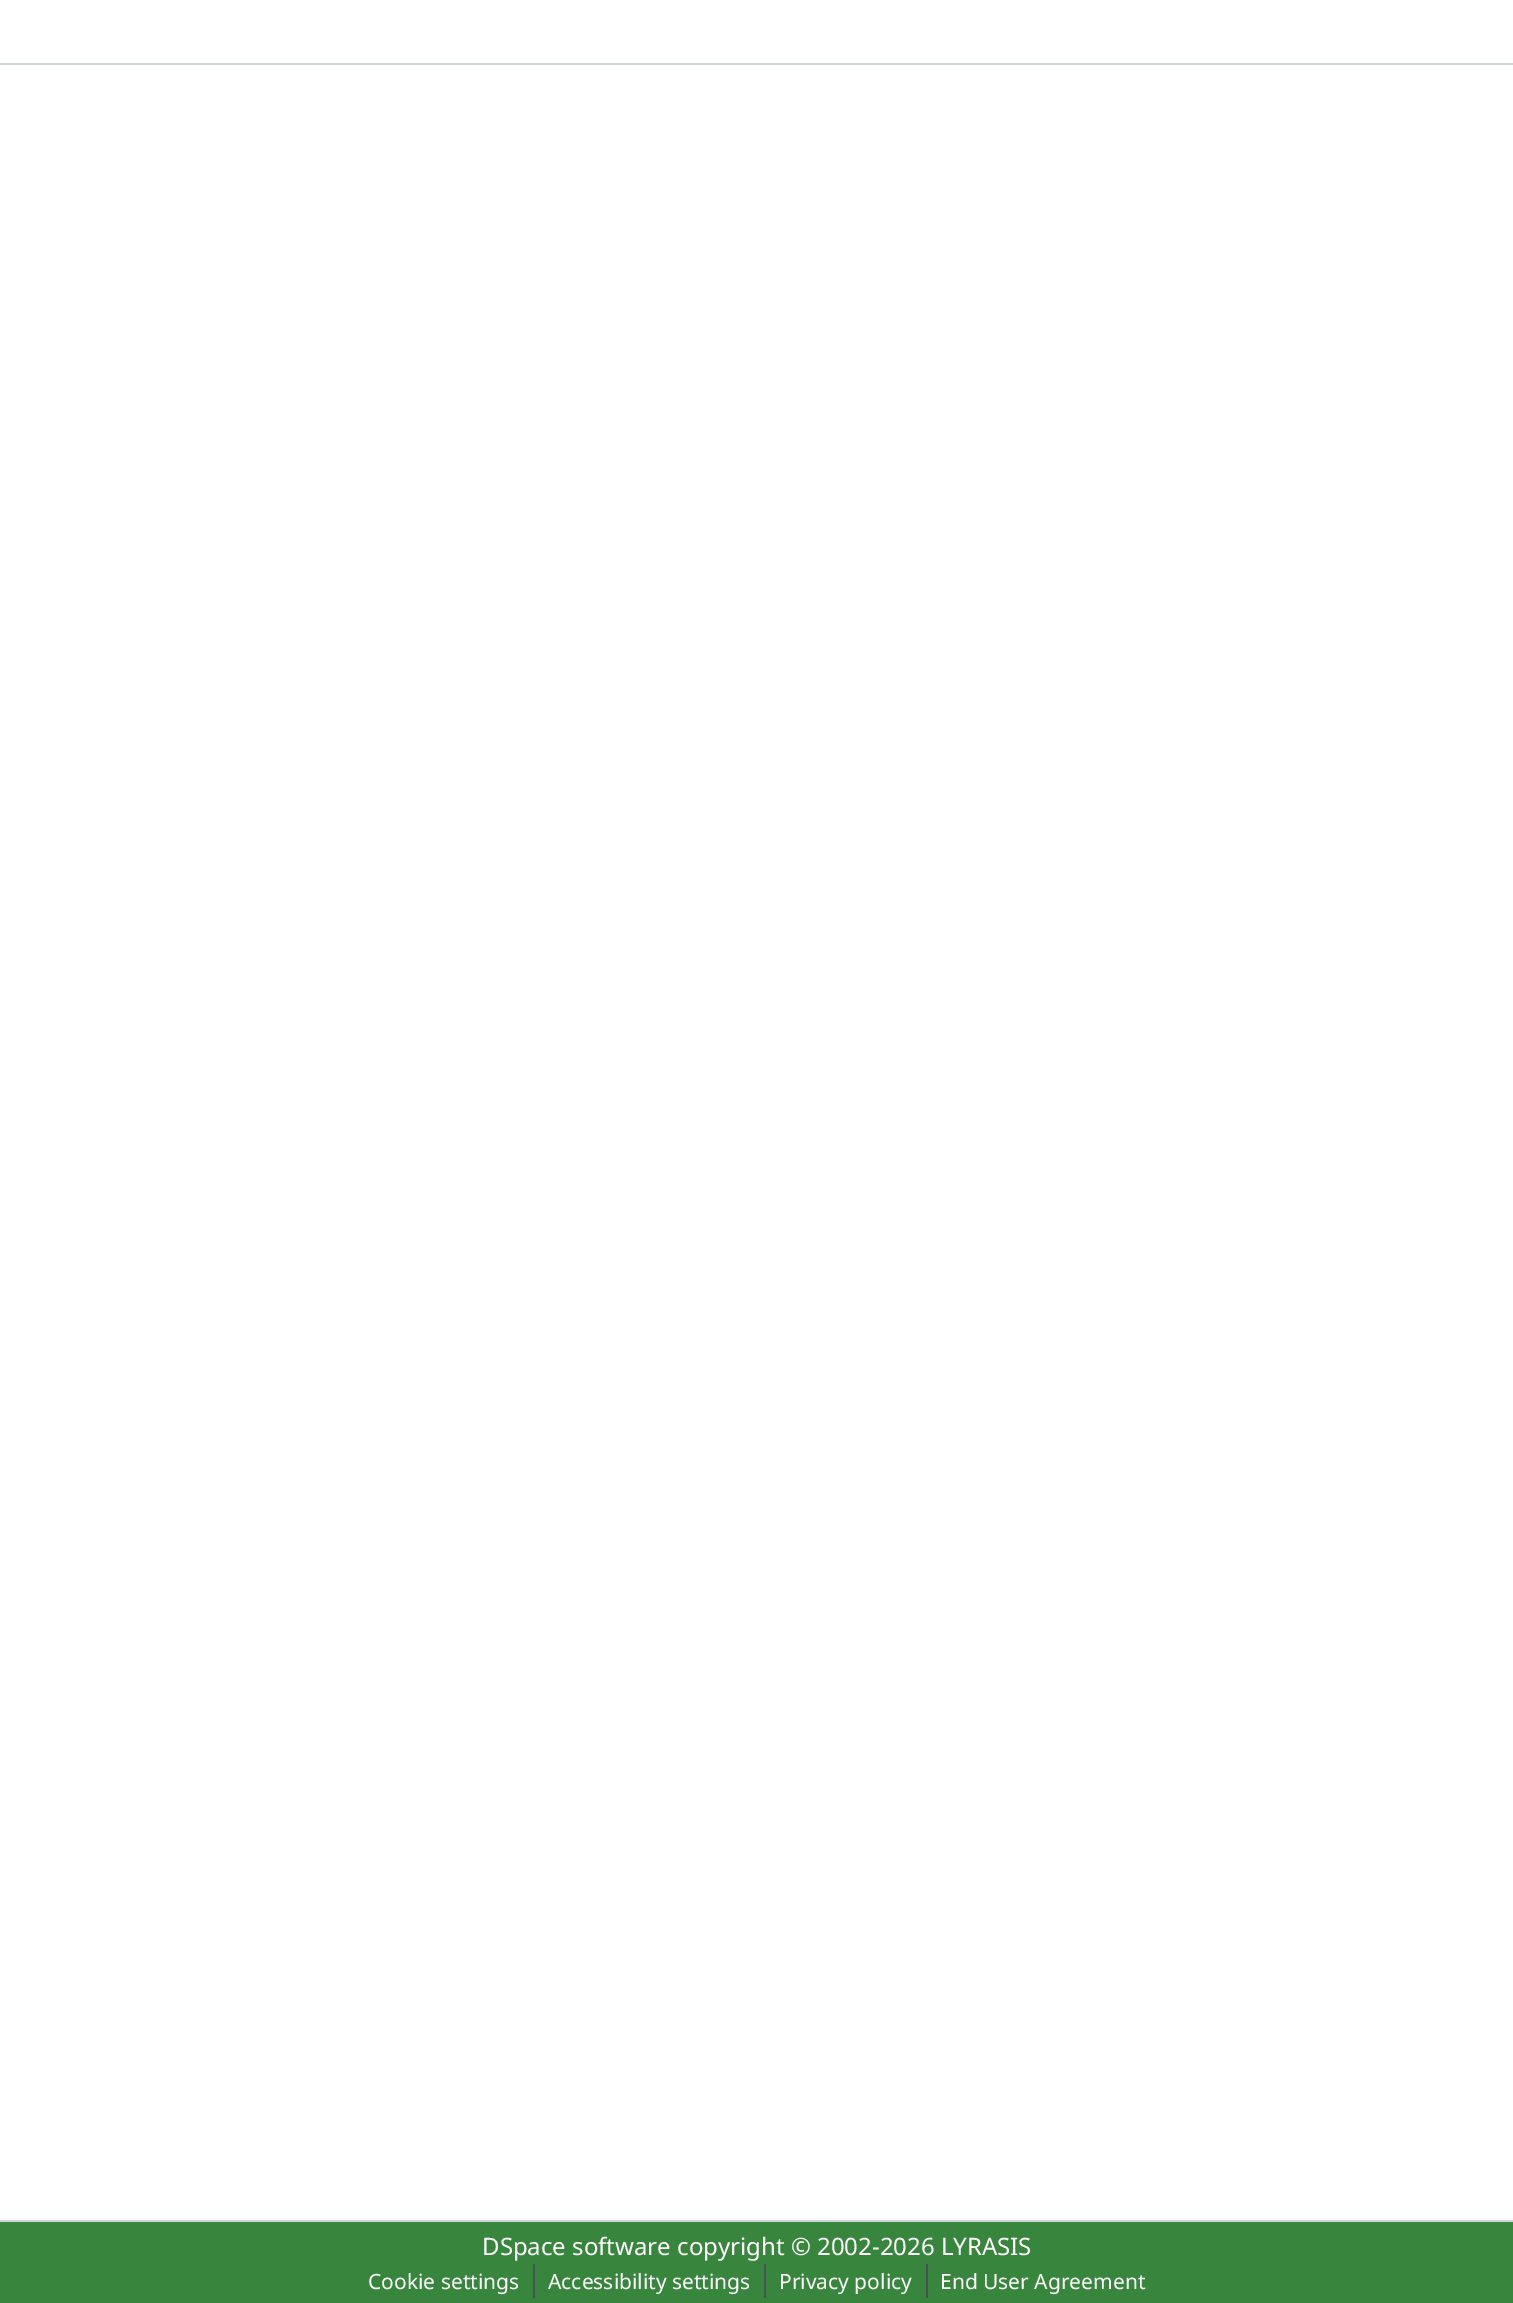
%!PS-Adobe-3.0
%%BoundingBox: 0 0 1513 2303
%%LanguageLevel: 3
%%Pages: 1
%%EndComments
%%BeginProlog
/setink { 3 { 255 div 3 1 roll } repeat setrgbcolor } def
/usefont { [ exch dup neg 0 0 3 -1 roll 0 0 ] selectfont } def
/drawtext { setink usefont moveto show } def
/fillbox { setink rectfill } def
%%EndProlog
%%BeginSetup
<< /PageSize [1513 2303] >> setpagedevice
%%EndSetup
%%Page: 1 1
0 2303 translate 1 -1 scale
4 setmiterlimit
0 0 1513 2303 255 255 255 fillbox
0 63 1513 2 206 212 218 fillbox
0 2222 1513 81 56 134 61 fillbox
0 2220 1513 2 206 212 218 fillbox
(DSpace software copyright © 2002-2026 LYRASIS) 482 2255 /NotoSans-Regular 24 255 255 255 drawtext
(Cookie settings) 368 2289 /NotoSans-Regular 21 255 255 255 drawtext
533 2264 2 34 73 80 87 fillbox
(Accessibility settings) 548 2289 /NotoSans-Regular 21 255 255 255 drawtext
764 2264 2 34 73 80 87 fillbox
(Privacy policy) 779 2289 /NotoSans-Regular 21 255 255 255 drawtext
926 2264 2 34 73 80 87 fillbox
(End User Agreement) 940 2289 /NotoSans-Regular 21 255 255 255 drawtext
showpage
%%EOF
